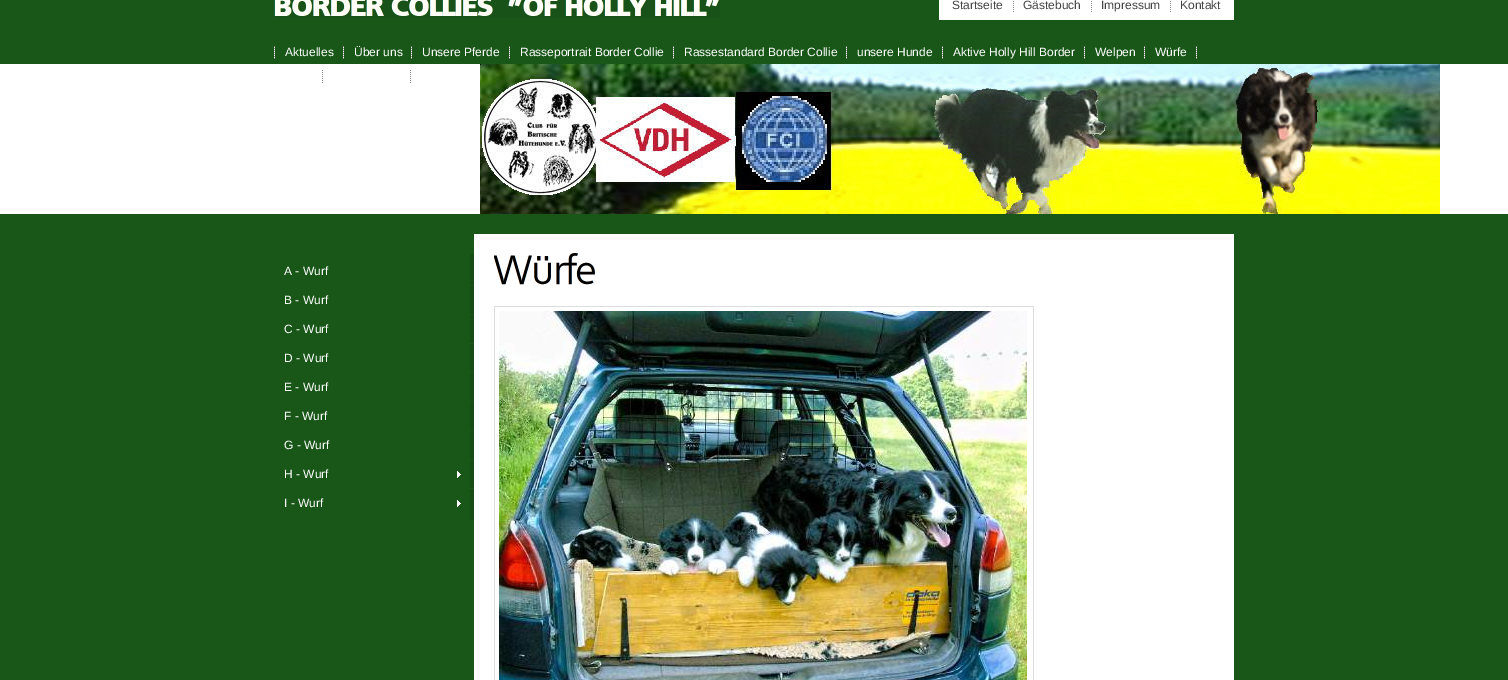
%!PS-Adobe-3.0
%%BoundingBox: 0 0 1508 680
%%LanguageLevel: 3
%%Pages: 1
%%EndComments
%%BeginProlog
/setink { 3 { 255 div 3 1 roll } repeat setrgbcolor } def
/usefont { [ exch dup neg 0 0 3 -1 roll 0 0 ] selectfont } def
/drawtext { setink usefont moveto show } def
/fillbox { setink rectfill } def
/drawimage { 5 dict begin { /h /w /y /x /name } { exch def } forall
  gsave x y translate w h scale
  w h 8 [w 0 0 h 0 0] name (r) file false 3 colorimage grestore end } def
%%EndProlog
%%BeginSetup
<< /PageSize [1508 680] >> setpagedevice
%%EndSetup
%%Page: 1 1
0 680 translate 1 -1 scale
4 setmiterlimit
0 0 1508 680 25 87 25 fillbox
(assets/img1.rgb) 274 0 446 18 drawimage
939 0 295 20 255 255 255 fillbox
(Startseite) 952 9 /LiberationSans-Regular 12 68 68 68 drawtext
(assets/img2.rgb) 1013 1 1 11 drawimage
(Gästebuch) 1023 9 /LiberationSans-Regular 12 68 68 68 drawtext
(assets/img2.rgb) 1091 1 1 11 drawimage
(Impressum) 1101 9 /LiberationSans-Regular 12 68 68 68 drawtext
(assets/img2.rgb) 1170 1 1 11 drawimage
(Kontakt) 1180 9 /LiberationSans-Regular 12 68 68 68 drawtext
(assets/img3.rgb) 274 46 1 13 drawimage
(assets/img3.rgb) 343 46 1 13 drawimage
(Aktuelles) 285 56 /LiberationSans-Regular 12 255 255 255 drawtext
(assets/img3.rgb) 411 46 1 13 drawimage
(Über uns) 354 56 /LiberationSans-Regular 12 255 255 255 drawtext
(assets/img3.rgb) 509 46 1 13 drawimage
(Unsere Pferde) 422 56 /LiberationSans-Regular 12 255 255 255 drawtext
(assets/img3.rgb) 673 46 1 13 drawimage
(Rasseportrait Border Collie) 520 56 /LiberationSans-Regular 12 255 255 255 drawtext
(assets/img3.rgb) 846 46 1 13 drawimage
(Rassestandard Border Collie) 684 56 /LiberationSans-Regular 12 255 255 255 drawtext
(assets/img3.rgb) 942 46 1 13 drawimage
(unsere Hunde) 857 56 /LiberationSans-Regular 12 255 255 255 drawtext
(assets/img3.rgb) 1084 46 1 13 drawimage
(Aktive Holly Hill Border) 953 56 /LiberationSans-Regular 12 255 255 255 drawtext
(assets/img3.rgb) 1144 46 1 13 drawimage
(Welpen) 1095 56 /LiberationSans-Regular 12 255 255 255 drawtext
(assets/img3.rgb) 1196 46 1 13 drawimage
(Würfe) 1155 56 /LiberationSans-Regular 12 255 255 255 drawtext
0 64 1508 150 255 255 255 fillbox
(assets/img3.rgb) 322 70 1 13 drawimage
(assets/img3.rgb) 410 70 1 13 drawimage
(assets/img4.rgb) 480 64 960 150 drawimage
474 234 760 446 255 255 255 fillbox
470 254 4 266 22 76 22 fillbox
(A - Wurf) 284 275 /LiberationSans-Regular 12 255 255 255 drawtext
470 285 4 1 25 87 25 fillbox
(B - Wurf) 284 304 /LiberationSans-Regular 12 255 255 255 drawtext
470 314 4 1 25 87 25 fillbox
(C - Wurf) 284 333 /LiberationSans-Regular 12 255 255 255 drawtext
470 343 4 1 25 87 25 fillbox
(D - Wurf) 284 362 /LiberationSans-Regular 12 255 255 255 drawtext
470 372 4 1 25 87 25 fillbox
(E - Wurf) 284 391 /LiberationSans-Regular 12 255 255 255 drawtext
470 401 4 1 25 87 25 fillbox
(F - Wurf) 284 420 /LiberationSans-Regular 12 255 255 255 drawtext
470 430 4 1 25 87 25 fillbox
(G - Wurf) 284 449 /LiberationSans-Regular 12 255 255 255 drawtext
(assets/img5.rgb) 457 471 4 7 drawimage
470 459 4 1 25 87 25 fillbox
(H - Wurf) 284 478 /LiberationSans-Regular 12 255 255 255 drawtext
(assets/img5.rgb) 457 500 4 7 drawimage
470 488 4 1 25 87 25 fillbox
(I - Wurf) 284 507 /LiberationSans-Regular 12 255 255 255 drawtext
(assets/img6.rgb) 494 253 101 32 drawimage
494 306 540 1 221 221 221 fillbox
1033 306 1 374 221 221 221 fillbox
494 306 1 374 221 221 221 fillbox
(assets/img7.rgb) 499 311 528 369 drawimage
showpage
%%EOF
